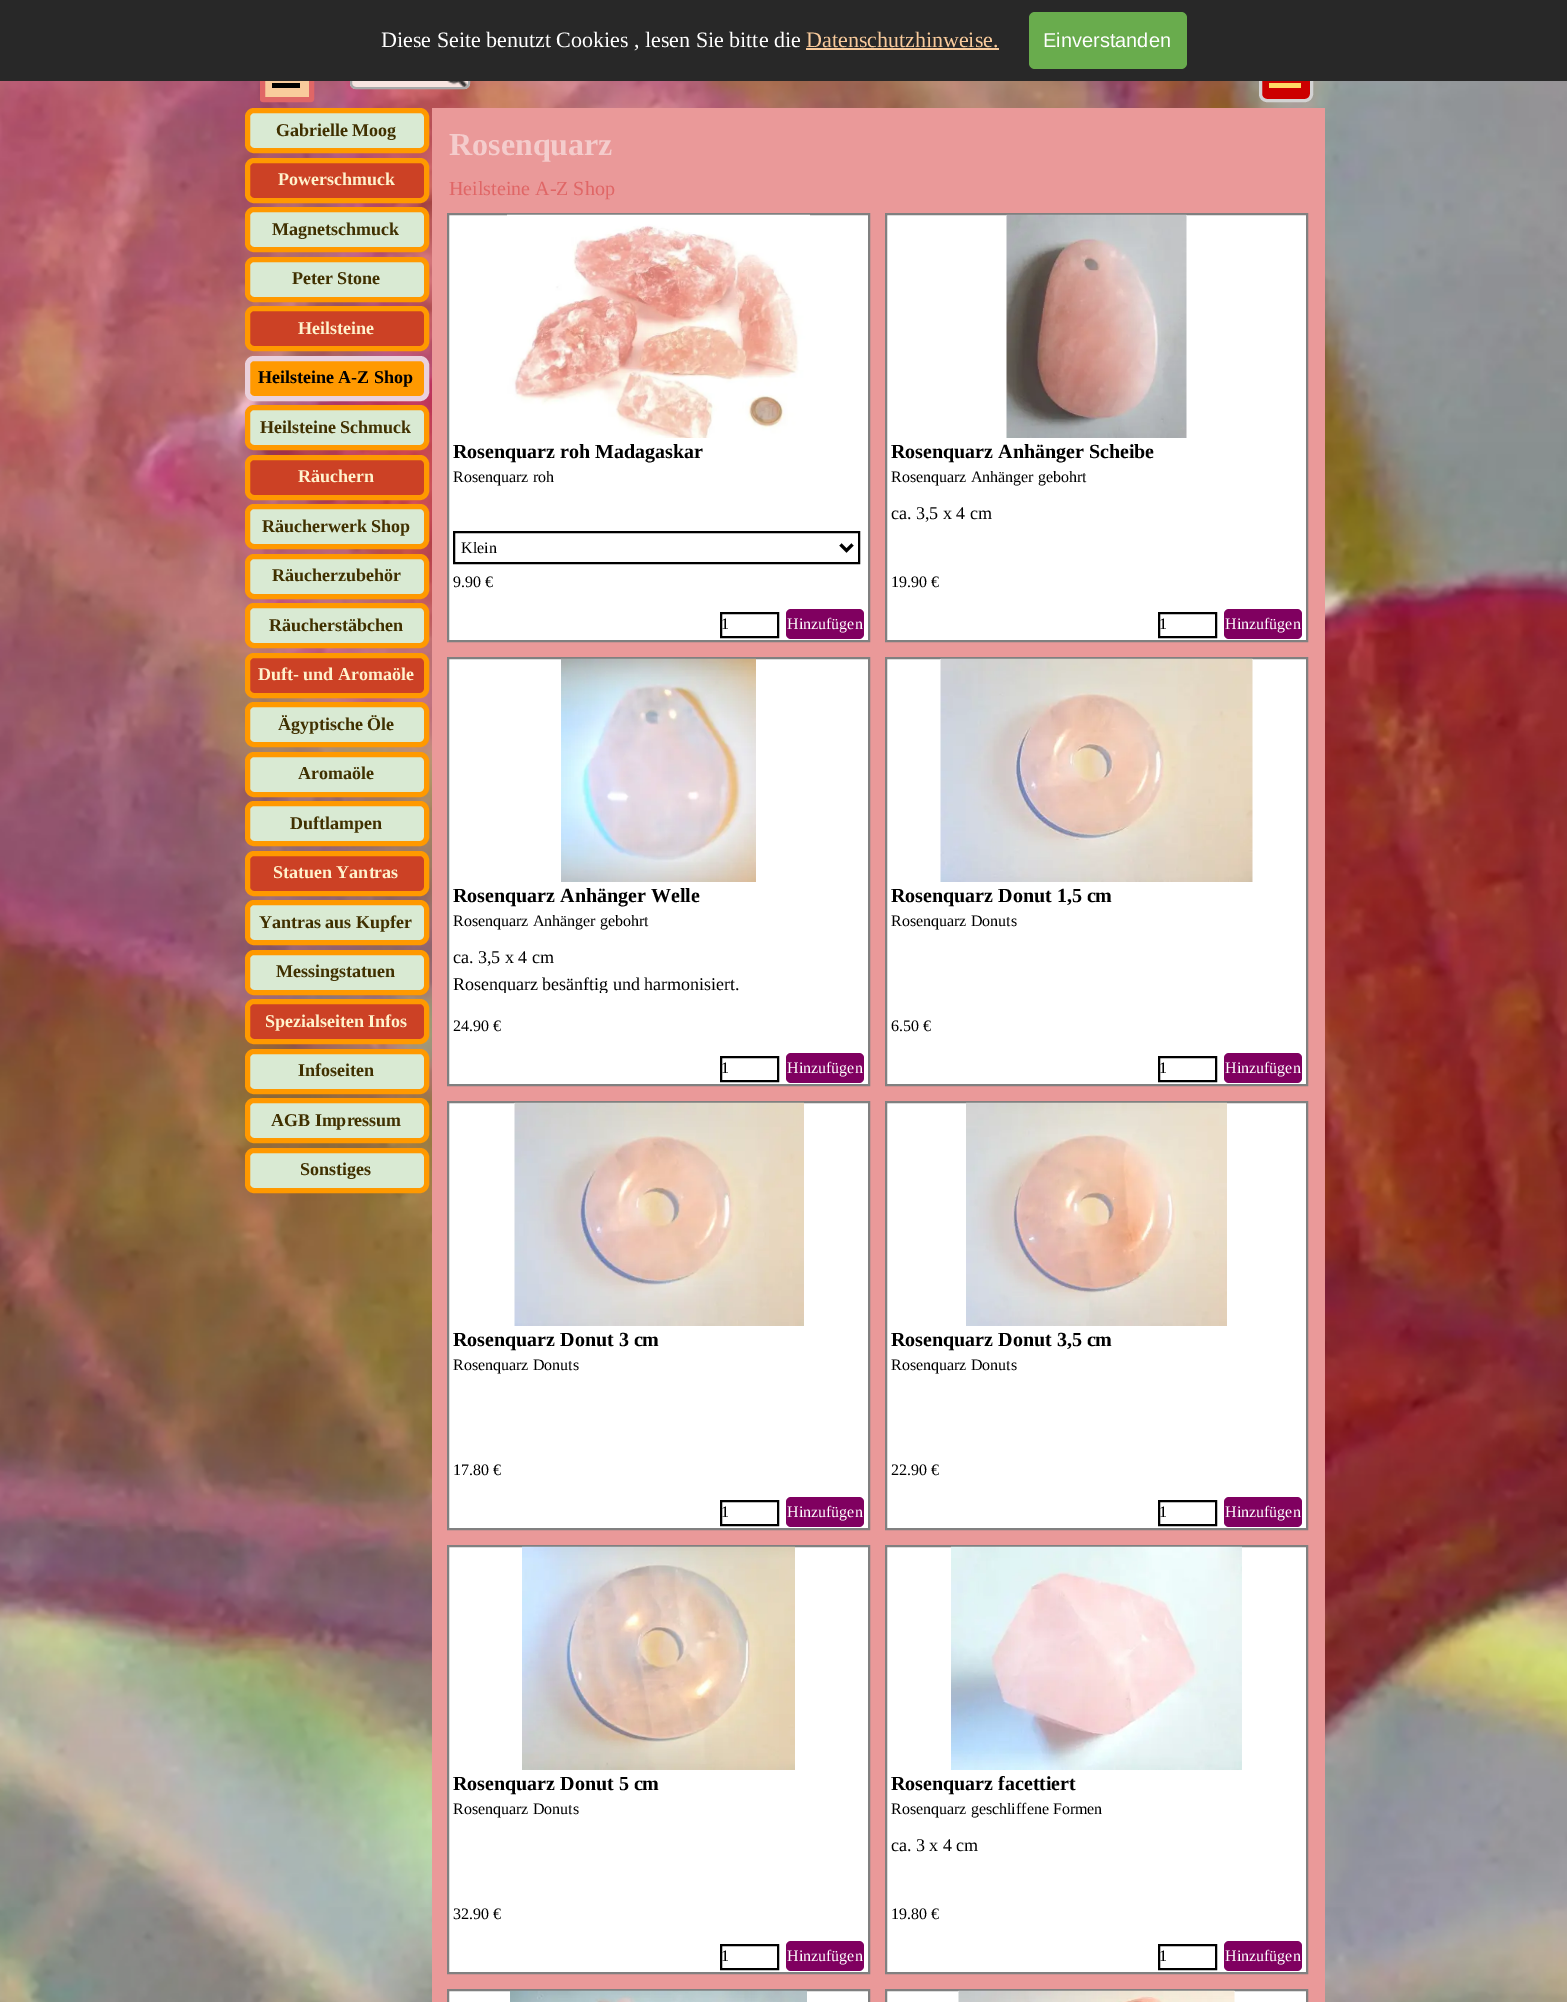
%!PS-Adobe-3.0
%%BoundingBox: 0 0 1567 2002
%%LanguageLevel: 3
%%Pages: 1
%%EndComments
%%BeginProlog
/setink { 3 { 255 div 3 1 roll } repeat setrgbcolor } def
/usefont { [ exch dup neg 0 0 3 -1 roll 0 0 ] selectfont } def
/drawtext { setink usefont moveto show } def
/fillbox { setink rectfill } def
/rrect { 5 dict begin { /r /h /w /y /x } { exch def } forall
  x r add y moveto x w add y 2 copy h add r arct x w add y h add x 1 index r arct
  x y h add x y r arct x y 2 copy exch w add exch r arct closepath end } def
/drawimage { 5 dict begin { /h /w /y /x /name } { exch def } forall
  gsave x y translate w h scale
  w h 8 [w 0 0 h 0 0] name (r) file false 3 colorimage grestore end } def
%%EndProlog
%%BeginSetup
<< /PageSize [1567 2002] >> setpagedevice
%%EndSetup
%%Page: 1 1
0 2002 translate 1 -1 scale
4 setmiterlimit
0 0 1567 2002 255 255 255 fillbox
(assets/img1.rgb) 0 81 1567 1921 drawimage
249 203 156 setink
262.5 50.5 49 49 0.5 rrect gsave fill grestore
224 102 102 setink
5 setlinewidth
stroke
248 228 224 setink
350 63 120 26 6 rrect fill
(assets/img2.rgb) 447 81 21 6 drawimage
169 169 169 setink
2 setlinewidth
351 64 118 24 5 rrect stroke
204 0 0 setink
1260.5 49.5 51 51 6.5 rrect gsave fill grestore
211 211 211 setink
3 setlinewidth
stroke
0 0 1567 81 40 40 40 fillbox
(Diese Seite benutzt Cookies , lesen Sie bitte die) 381 47 /LiberationSerif-Regular 22 255 255 255 drawtext
(Datenschutzhinweise.) 806 47 /LiberationSerif-Regular 22 249 203 156 drawtext
806 48 193 2 249 203 156 fillbox
105 172 77 setink
1029 12 158 57 6 rrect fill
(Einverstanden) 1043 47 /LiberationSans-Regular 20 255 255 255 drawtext
272 83 28 5 0 0 0 fillbox
1269 83 32 5 255 217 102 fillbox
217 234 211 setink
247.5 110.5 179 40 6.5 rrect gsave fill grestore
255 153 0 setink
5 setlinewidth
stroke
(Gabrielle Moog) 276 136 /LiberationSerif-Bold 18 64 48 0 drawtext
204 65 37 setink
247.5 160.5 179 40 6.5 rrect gsave fill grestore
255 153 0 setink
stroke
(Powerschmuck) 278 185 /LiberationSerif-Bold 18 255 242 204 drawtext
217 234 211 setink
247.5 209.5 179 40 6.5 rrect gsave fill grestore
255 153 0 setink
stroke
(Magnetschmuck) 272 235 /LiberationSerif-Bold 18 64 48 0 drawtext
217 234 211 setink
247.5 259.5 179 40 6.5 rrect gsave fill grestore
255 153 0 setink
stroke
(Peter Stone) 292 284 /LiberationSerif-Bold 18 64 48 0 drawtext
204 65 37 setink
247.5 308.5 179 40 6.5 rrect gsave fill grestore
255 153 0 setink
stroke
(Heilsteine) 298 334 /LiberationSerif-Bold 18 255 242 204 drawtext
255 153 0 setink
247.5 358.5 179 40 6.5 rrect gsave fill grestore
234 209 220 setink
stroke
(Heilsteine A-Z Shop) 258 383 /LiberationSerif-Bold 18 0 0 0 drawtext
217 234 211 setink
247.5 407.5 179 40 6.5 rrect gsave fill grestore
255 153 0 setink
stroke
(Heilsteine Schmuck) 260 433 /LiberationSerif-Bold 18 64 48 0 drawtext
204 65 37 setink
247.5 457.5 179 40 6.5 rrect gsave fill grestore
255 153 0 setink
stroke
(Räuchern) 298 482 /LiberationSerif-Bold 18 255 242 204 drawtext
217 234 211 setink
247.5 506.5 179 40 6.5 rrect gsave fill grestore
255 153 0 setink
stroke
(Räucherwerk Shop) 262 532 /LiberationSerif-Bold 18 64 48 0 drawtext
217 234 211 setink
247.5 556.5 179 40 6.5 rrect gsave fill grestore
255 153 0 setink
stroke
(Räucherzubehör) 272 581 /LiberationSerif-Bold 18 64 48 0 drawtext
217 234 211 setink
247.5 605.5 179 40 6.5 rrect gsave fill grestore
255 153 0 setink
stroke
(Räucherstäbchen) 269 631 /LiberationSerif-Bold 18 64 48 0 drawtext
204 65 37 setink
247.5 655.5 179 40 6.5 rrect gsave fill grestore
255 153 0 setink
stroke
(Duft- und Aromaöle) 258 680 /LiberationSerif-Bold 18 255 242 204 drawtext
217 234 211 setink
247.5 704.5 179 40 6.5 rrect gsave fill grestore
255 153 0 setink
stroke
(Ägyptische Öle) 278 730 /LiberationSerif-Bold 18 64 48 0 drawtext
217 234 211 setink
247.5 754.5 179 40 6.5 rrect gsave fill grestore
255 153 0 setink
stroke
(Aromaöle) 298 779 /LiberationSerif-Bold 18 64 48 0 drawtext
217 234 211 setink
247.5 803.5 179 40 6.5 rrect gsave fill grestore
255 153 0 setink
stroke
(Duftlampen) 290 829 /LiberationSerif-Bold 18 64 48 0 drawtext
204 65 37 setink
247.5 853.5 179 40 6.5 rrect gsave fill grestore
255 153 0 setink
stroke
(Statuen Yantras) 273 878 /LiberationSerif-Bold 18 255 242 204 drawtext
217 234 211 setink
247.5 902.5 179 40 6.5 rrect gsave fill grestore
255 153 0 setink
stroke
(Yantras aus Kupfer) 259 928 /LiberationSerif-Bold 18 64 48 0 drawtext
217 234 211 setink
247.5 952.5 179 40 6.5 rrect gsave fill grestore
255 153 0 setink
stroke
(Messingstatuen) 276 977 /LiberationSerif-Bold 18 64 48 0 drawtext
204 65 37 setink
247.5 1001.5 179 40 6.5 rrect gsave fill grestore
255 153 0 setink
stroke
(Spezialseiten Infos) 265 1027 /LiberationSerif-Bold 18 255 242 204 drawtext
217 234 211 setink
247.5 1051.5 179 40 6.5 rrect gsave fill grestore
255 153 0 setink
stroke
(Infoseiten) 298 1076 /LiberationSerif-Bold 18 64 48 0 drawtext
217 234 211 setink
247.5 1100.5 179 40 6.5 rrect gsave fill grestore
255 153 0 setink
stroke
(AGB Impressum) 271 1126 /LiberationSerif-Bold 18 64 48 0 drawtext
217 234 211 setink
247.5 1150.5 179 40 6.5 rrect gsave fill grestore
255 153 0 setink
stroke
(Sonstiges) 300 1175 /LiberationSerif-Bold 18 64 48 0 drawtext
432 108 893 1894 234 153 153 fillbox
(Rosenquarz) 449 155 /LiberationSerif-Bold 32 244 204 204 drawtext
(Heilsteine A-Z Shop) 449 195 /LiberationSerif-Regular 20 224 102 102 drawtext
255 255 255 setink
448 214 moveto 869 214 lineto 869 641 lineto 448 641 lineto closepath gsave fill grestore
128 128 128 setink
2 setlinewidth
stroke
(assets/img3.rgb) 507 214 303 224 drawimage
(Rosenquarz roh Madagaskar) 453 458 /LiberationSerif-Bold 20 0 0 0 drawtext
(Rosenquarz roh) 453 482 /LiberationSerif-Regular 16 0 0 0 drawtext
454 532 405 31 rectstroke
3 setlinewidth
840.5 544.5 moveto 846.5 550.5 lineto 852.5 544.5 lineto stroke
(Klein) 461 553 /LiberationSerif-Regular 16 0 0 0 drawtext
(9.90 €) 453 587 /LiberationSerif-Regular 16 0 0 0 drawtext
2 setlinewidth
721 613 57 24 rectstroke
(1) 721 629 /LiberationSerif-Regular 16 0 0 0 drawtext
128 0 96 setink
786 609 78 30 5 rrect fill
(Hinzufügen) 787 629 /LiberationSerif-Regular 16 255 255 255 drawtext
886 214 moveto 1307 214 lineto 1307 641 lineto 886 641 lineto closepath gsave fill grestore
128 128 128 setink
stroke
(assets/img4.rgb) 1006 214 181 224 drawimage
(Rosenquarz Anhänger Scheibe) 891 458 /LiberationSerif-Bold 20 0 0 0 drawtext
(Rosenquarz Anhänger gebohrt) 891 482 /LiberationSerif-Regular 16 0 0 0 drawtext
(ca. 3,5 x 4 cm) 891 519 /LiberationSerif-Regular 18 0 0 0 drawtext
(19.90 €) 891 587 /LiberationSerif-Regular 16 0 0 0 drawtext
1159 613 57 24 rectstroke
(1) 1159 629 /LiberationSerif-Regular 16 0 0 0 drawtext
128 0 96 setink
1224 609 78 30 5 rrect fill
(Hinzufügen) 1225 629 /LiberationSerif-Regular 16 255 255 255 drawtext
448 658 moveto 869 658 lineto 869 1085 lineto 448 1085 lineto closepath gsave fill grestore
128 128 128 setink
stroke
(assets/img5.rgb) 561 658 195 224 drawimage
(Rosenquarz Anhänger Welle) 453 902 /LiberationSerif-Bold 20 0 0 0 drawtext
(Rosenquarz Anhänger gebohrt) 453 926 /LiberationSerif-Regular 16 0 0 0 drawtext
(ca. 3,5 x 4 cm) 453 963 /LiberationSerif-Regular 18 0 0 0 drawtext
gsave
453 944 411 49 rectclip
(Rosenquarz besänftig und harmonisiert.) 453 990 /LiberationSerif-Regular 18 0 0 0 drawtext
grestore
(24.90 €) 453 1031 /LiberationSerif-Regular 16 0 0 0 drawtext
721 1057 57 24 rectstroke
(1) 721 1073 /LiberationSerif-Regular 16 0 0 0 drawtext
128 0 96 setink
786 1053 78 30 5 rrect fill
(Hinzufügen) 787 1073 /LiberationSerif-Regular 16 255 255 255 drawtext
886 658 moveto 1307 658 lineto 1307 1085 lineto 886 1085 lineto closepath gsave fill grestore
128 128 128 setink
stroke
(assets/img6.rgb) 940 658 313 224 drawimage
(Rosenquarz Donut 1,5 cm) 891 902 /LiberationSerif-Bold 20 0 0 0 drawtext
(Rosenquarz Donuts) 891 926 /LiberationSerif-Regular 16 0 0 0 drawtext
(6.50 €) 891 1031 /LiberationSerif-Regular 16 0 0 0 drawtext
1159 1057 57 24 rectstroke
(1) 1159 1073 /LiberationSerif-Regular 16 0 0 0 drawtext
128 0 96 setink
1224 1053 78 30 5 rrect fill
(Hinzufügen) 1225 1073 /LiberationSerif-Regular 16 255 255 255 drawtext
448 1102 moveto 869 1102 lineto 869 1529 lineto 448 1529 lineto closepath gsave fill grestore
128 128 128 setink
stroke
(assets/img7.rgb) 514 1102 290 224 drawimage
(Rosenquarz Donut 3 cm) 453 1346 /LiberationSerif-Bold 20 0 0 0 drawtext
(Rosenquarz Donuts) 453 1370 /LiberationSerif-Regular 16 0 0 0 drawtext
(17.80 €) 453 1475 /LiberationSerif-Regular 16 0 0 0 drawtext
721 1501 57 24 rectstroke
(1) 721 1517 /LiberationSerif-Regular 16 0 0 0 drawtext
128 0 96 setink
786 1497 78 30 5 rrect fill
(Hinzufügen) 787 1517 /LiberationSerif-Regular 16 255 255 255 drawtext
886 1102 moveto 1307 1102 lineto 1307 1529 lineto 886 1529 lineto closepath gsave fill grestore
128 128 128 setink
stroke
(assets/img8.rgb) 966 1102 261 224 drawimage
(Rosenquarz Donut 3,5 cm) 891 1346 /LiberationSerif-Bold 20 0 0 0 drawtext
(Rosenquarz Donuts) 891 1370 /LiberationSerif-Regular 16 0 0 0 drawtext
(22.90 €) 891 1475 /LiberationSerif-Regular 16 0 0 0 drawtext
1159 1501 57 24 rectstroke
(1) 1159 1517 /LiberationSerif-Regular 16 0 0 0 drawtext
128 0 96 setink
1224 1497 78 30 5 rrect fill
(Hinzufügen) 1225 1517 /LiberationSerif-Regular 16 255 255 255 drawtext
448 1546 moveto 869 1546 lineto 869 1973 lineto 448 1973 lineto closepath gsave fill grestore
128 128 128 setink
stroke
(assets/img9.rgb) 522 1546 273 224 drawimage
(Rosenquarz Donut 5 cm) 453 1790 /LiberationSerif-Bold 20 0 0 0 drawtext
(Rosenquarz Donuts) 453 1814 /LiberationSerif-Regular 16 0 0 0 drawtext
(32.90 €) 453 1919 /LiberationSerif-Regular 16 0 0 0 drawtext
721 1945 57 24 rectstroke
(1) 721 1961 /LiberationSerif-Regular 16 0 0 0 drawtext
128 0 96 setink
786 1941 78 30 5 rrect fill
(Hinzufügen) 787 1961 /LiberationSerif-Regular 16 255 255 255 drawtext
886 1546 moveto 1307 1546 lineto 1307 1973 lineto 886 1973 lineto closepath gsave fill grestore
128 128 128 setink
stroke
(assets/img10.rgb) 951 1546 291 224 drawimage
(Rosenquarz facettiert) 891 1790 /LiberationSerif-Bold 20 0 0 0 drawtext
(Rosenquarz geschliffene Formen) 891 1814 /LiberationSerif-Regular 16 0 0 0 drawtext
(ca. 3 x 4 cm) 891 1851 /LiberationSerif-Regular 18 0 0 0 drawtext
(19.80 €) 891 1919 /LiberationSerif-Regular 16 0 0 0 drawtext
1159 1945 57 24 rectstroke
(1) 1159 1961 /LiberationSerif-Regular 16 0 0 0 drawtext
128 0 96 setink
1224 1941 78 30 5 rrect fill
(Hinzufügen) 1225 1961 /LiberationSerif-Regular 16 255 255 255 drawtext
448 1990 moveto 869 1990 lineto 869 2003 lineto 448 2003 lineto closepath gsave fill grestore
128 128 128 setink
stroke
(assets/img11.rgb) 510 1990 297 12 drawimage
255 255 255 setink
886 1990 moveto 1307 1990 lineto 1307 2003 lineto 886 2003 lineto closepath gsave fill grestore
128 128 128 setink
stroke
(assets/img12.rgb) 958 1990 277 12 drawimage
showpage
%%EOF
